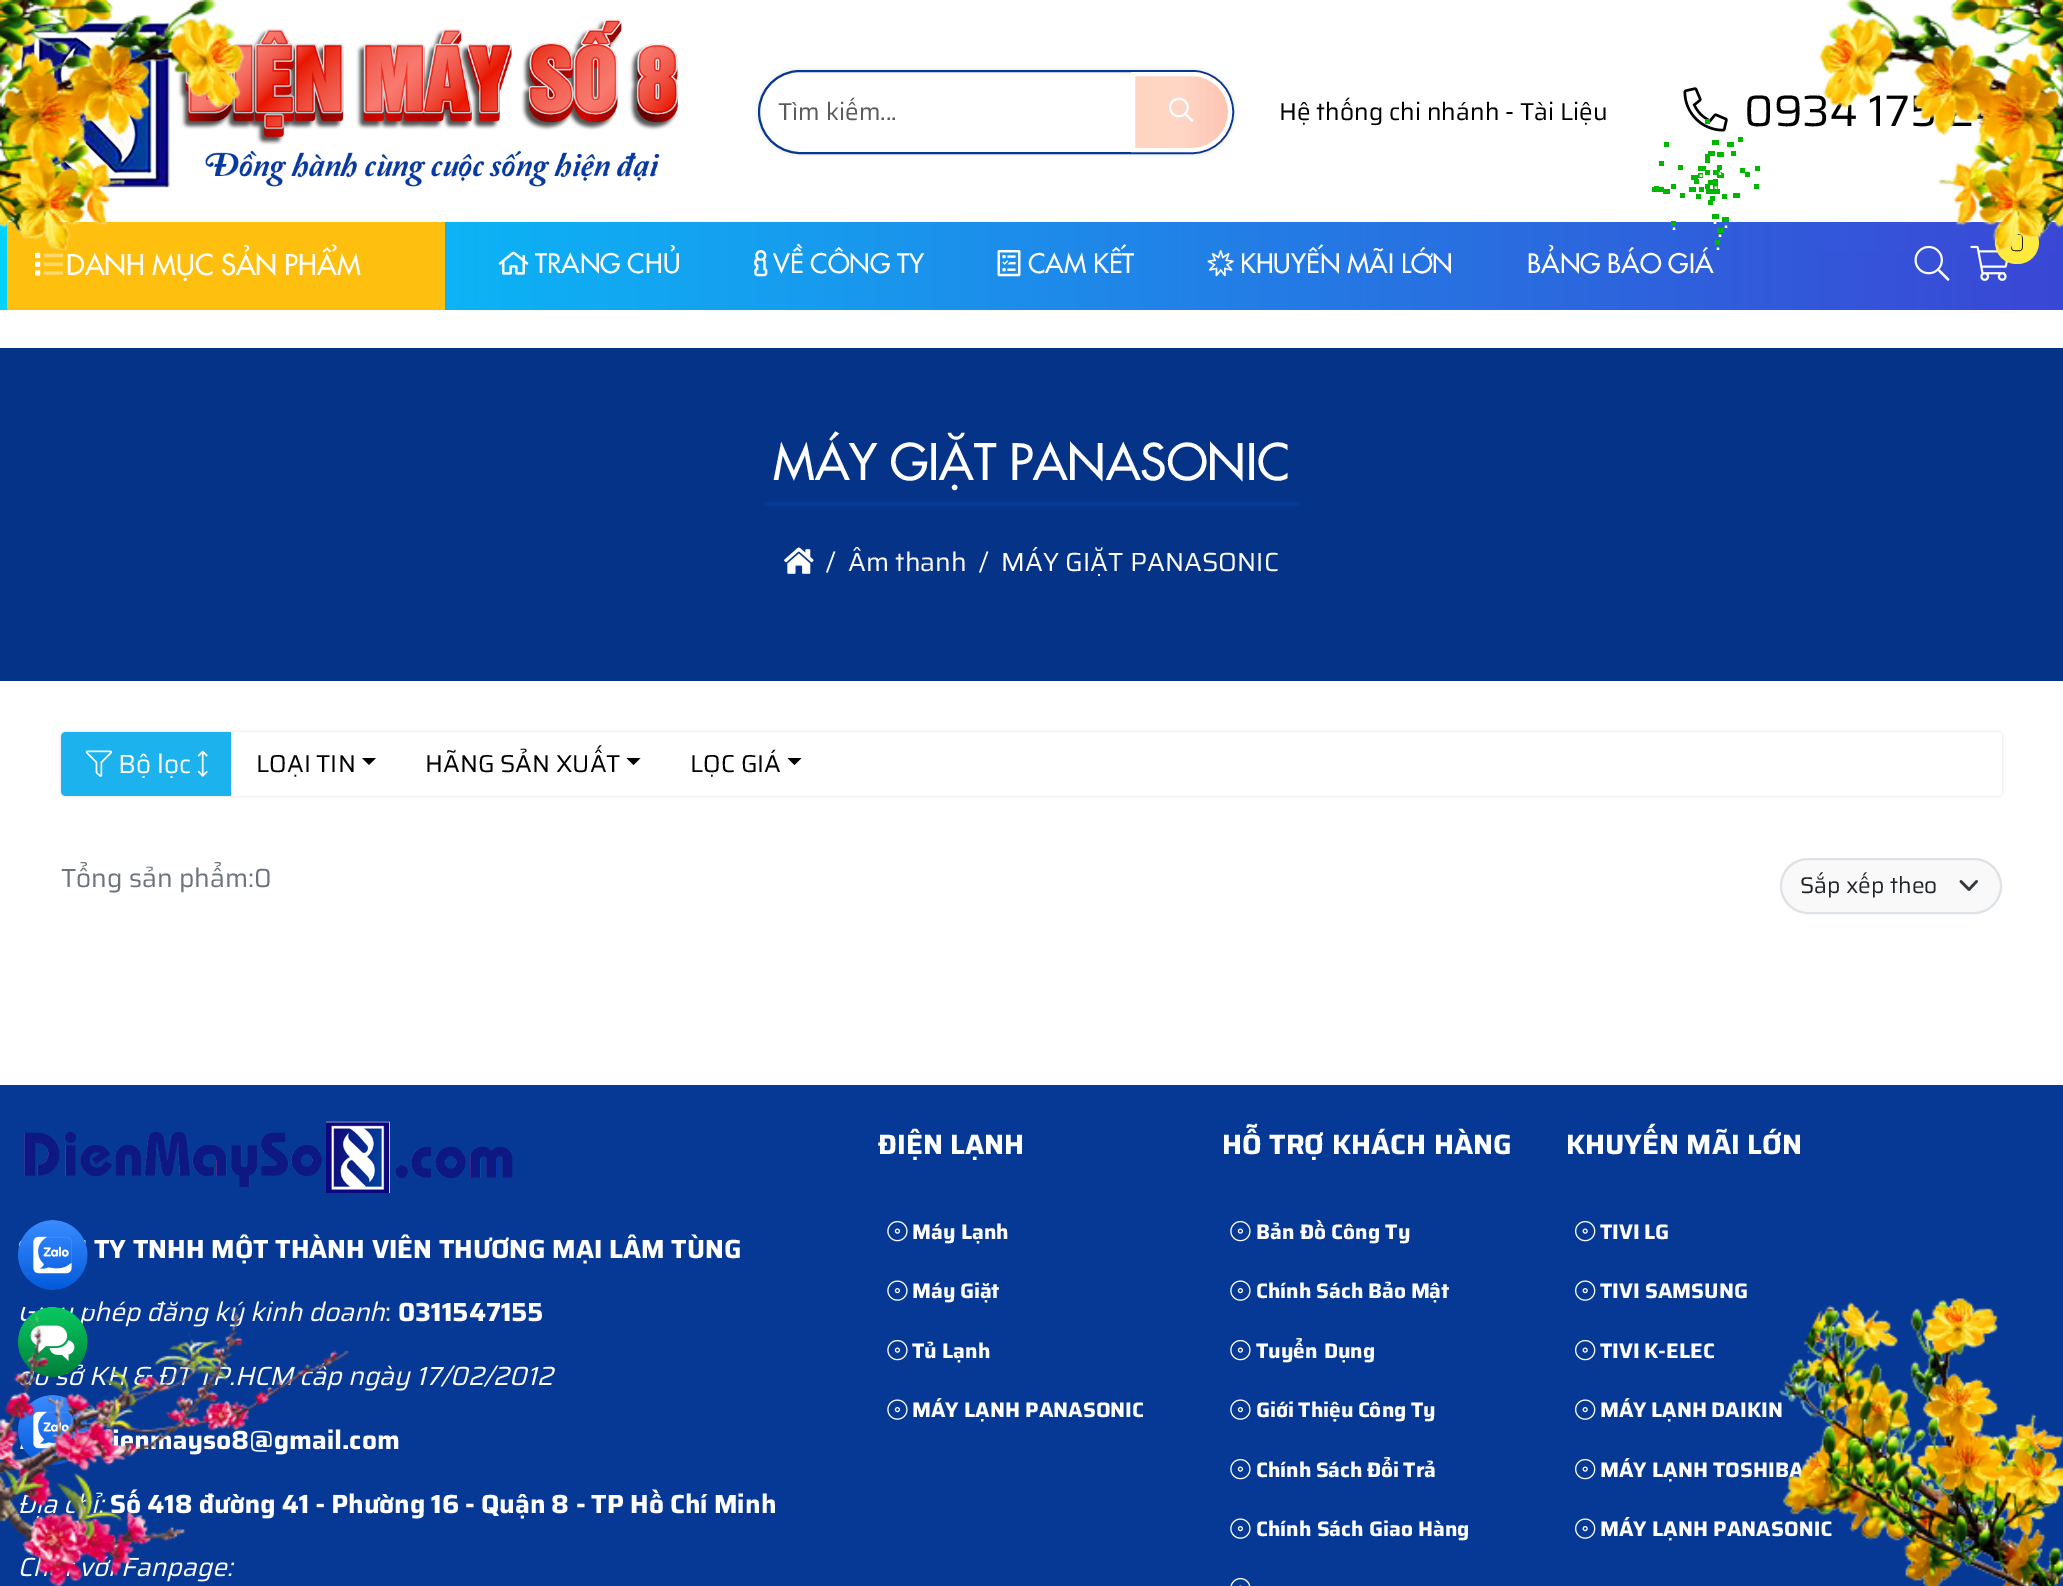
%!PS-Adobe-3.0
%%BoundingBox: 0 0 2063 1586
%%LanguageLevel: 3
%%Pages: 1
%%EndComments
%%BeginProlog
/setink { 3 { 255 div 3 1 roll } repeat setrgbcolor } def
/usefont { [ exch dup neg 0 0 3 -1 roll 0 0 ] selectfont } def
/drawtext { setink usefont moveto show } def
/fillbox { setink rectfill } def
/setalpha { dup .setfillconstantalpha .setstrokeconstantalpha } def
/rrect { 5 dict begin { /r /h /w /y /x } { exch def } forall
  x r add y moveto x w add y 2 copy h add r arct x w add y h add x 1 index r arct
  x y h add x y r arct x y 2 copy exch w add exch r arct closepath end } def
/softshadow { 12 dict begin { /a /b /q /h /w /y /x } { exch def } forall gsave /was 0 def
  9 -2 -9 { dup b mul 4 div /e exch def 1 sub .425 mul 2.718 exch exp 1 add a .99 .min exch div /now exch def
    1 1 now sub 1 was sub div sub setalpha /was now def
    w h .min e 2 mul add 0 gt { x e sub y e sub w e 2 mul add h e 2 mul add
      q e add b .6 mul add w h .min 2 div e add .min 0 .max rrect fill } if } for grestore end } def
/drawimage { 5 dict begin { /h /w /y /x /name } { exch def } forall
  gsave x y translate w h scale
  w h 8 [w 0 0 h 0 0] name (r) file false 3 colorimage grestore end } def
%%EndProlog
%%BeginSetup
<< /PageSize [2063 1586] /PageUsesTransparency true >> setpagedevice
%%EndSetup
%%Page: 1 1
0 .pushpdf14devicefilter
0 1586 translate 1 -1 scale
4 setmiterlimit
0 0 2063 1586 255 255 255 fillbox
(assets/img3.rgb) 21 18 657 170 drawimage
gsave 0 222 moveto 2063 222 lineto 2063 310 lineto 0 310 lineto closepath clip newpath
<< /ShadingType 2 /ColorSpace /DeviceRGB /Coords [0 266 2063 266] /Extend [true true] /Function << /FunctionType 2 /Domain [0 1] /C0 [0 0.824 1] /C1 [0.227 0.278 0.835] /N 1 >> >> shfill grestore
7 222 438 88 255 191 14 fillbox
(DANH MỤC SẢN PHẨM) 66 275 /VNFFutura-Regular 28 255 255 255 drawtext
(assets/img1.rgb) 0 0 245 250 drawimage
(0934 17) 1744 126 /Saira-Regular 44 0 0 0 drawtext
(assets/img12.rgb) 1970 245 38 36 drawimage
255 235 59 setink
1995 221 44 43 21.5 rrect fill
(0) 2009 251 /Saira-Thin 24.5 0 0 0 drawtext
(assets/img13.rgb) 1914 245 36 36 drawimage
(assets/img2.rgb) 1818 0 245 251 drawimage
223 223 223 setink
758 70 476 84 42 2 1 softshadow
255 255 255 setink
759 71 474 82 41 rrect gsave fill grestore
6 57 149 setink
2 setlinewidth
stroke
(Tìm kiếm...) 778 120 /Saira-Regular 24.5 89 92 95 drawtext
gsave
1131 72 moveto 1192 72 lineto 1214 72 1232 90 1232 112 curveto 1232 134 1214 152 1192 152 curveto 1131 152 lineto closepath clip newpath
0.3 setalpha
gsave 1135 72 moveto 1229 72 lineto 1229 152 lineto 1135 152 lineto closepath clip newpath
<< /ShadingType 2 /ColorSpace /DeviceRGB /Coords [1134 112 1229 112] /Extend [true true] /Function << /FunctionType 3 /Domain [0 1] /Functions [<< /FunctionType 2 /Domain [0 1] /C0 [0.98 0.451 0.137] /C1 [1 0.467 0.243] /N 1 >> << /FunctionType 2 /Domain [0 1] /C0 [1 0.467 0.243] /C1 [0.973 0.22 0] /N 1 >>] /Bounds [0.47] /Encode [0 1 0 1] >> >> shfill grestore
grestore
255 255 255 setink
4 setlinewidth
1133 74 moveto 1192 74 lineto 1213 74 1230 91 1230 112 curveto 1230 133 1213 150 1192 150 curveto 1133 150 lineto closepath stroke
(assets/img4.rgb) 1169 97 25 25 drawimage
(Hệ thống chi nhánh - Tài Liệu) 1279 120 /Saira-Regular 24.5 0 0 0 drawtext
(assets/img5.rgb) 1683 87 45 45 drawimage
(assets/img6.rgb) 35 252 6 24 drawimage
(assets/img7.rgb) 43 253 20 22 drawimage
(assets/img8.rgb) 498 251 31 24 drawimage
(TRANG CHỦ) 535 273 /VNFFutura-Regular 26.25 255 255 255 drawtext
(assets/img9.rgb) 754 250 14 27 drawimage
(VỀ CÔNG TY) 773 273 /VNFFutura-Regular 26.25 255 255 255 drawtext
(assets/img10.rgb) 997 250 24 27 drawimage
(CAM KẾT) 1028 273 /VNFFutura-Regular 26.25 255 255 255 drawtext
(assets/img11.rgb) 1207 250 27 27 drawimage
(KHUYẾN MÃI LỚN) 1240 273 /VNFFutura-Regular 26.25 255 255 255 drawtext
(BẢNG BÁO GIÁ) 1527 273 /VNFFutura-Regular 26.25 255 255 255 drawtext
0 348 2063 333 5 51 136 fillbox
765 502 534 4 6 57 149 fillbox
(MÁY GIẶT PANASONIC) 773 480 /VNFFutura-Regular 49 255 255 255 drawtext
(assets/img14.rgb) 784 547 30 27 drawimage
(/) 826 571 /Saira-Regular 26.25 255 255 255 drawtext
(Âm thanh) 848 571 /Saira-Regular 26.25 255 255 255 drawtext
(/) 979 571 /Saira-Regular 26.25 255 255 255 drawtext
(MÁY GIẶT PANASONIC) 1001 571 /Saira-Regular 26.25 255 255 255 drawtext
223 223 223 setink
61 732 1941 64 5 2 1 softshadow
255 255 255 setink
61 732 1941 64 5 rrect fill
28 178 237 setink
66 732 moveto 231 732 lineto 231 796 lineto 66 796 lineto 63 796 61 794 61 791 curveto 61 737 lineto 61 734 63 732 66 732 curveto closepath fill
(assets/img15.rgb) 85 750 27 27 drawimage
(Bộ lọc) 118 773 /Saira-Regular 26.25 255 255 255 drawtext
(assets/img16.rgb) 197 750 11 27 drawimage
(LOẠI TIN) 256 772 /Saira-Regular 24.5 0 0 0 drawtext
362 758 moveto 376 758 lineto 369 765 lineto closepath fill
(HÃNG SẢN XUẤT) 425 772 /Saira-Regular 24.5 0 0 0 drawtext
626.5 758 moveto 640.5 758 lineto 633.5 765 lineto closepath fill
(LỌC GIÁ) 690 772 /Saira-Regular 24.5 0 0 0 drawtext
787.5 758 moveto 801.5 758 lineto 794.5 765 lineto closepath fill
(Tổng sản phẩm:0) 61 887 /Saira-Regular 26.25 108 117 125 drawtext
249 249 249 setink
1780 858 222 56 28 rrect fill
52 58 64 setink
2.6 setlinewidth
1 setlinecap
1 setlinejoin
1961 881.5 moveto 1969 889.5 lineto 1976.5 881.5 lineto stroke
222 226 230 setink
2 setlinewidth
0 setlinecap
0 setlinejoin
1781 859 220 54 27 rrect stroke
(Sắp xếp theo) 1800 893 /Saira-Regular 22.75 33 37 41 drawtext
0 1085 2063 501 6 57 149 fillbox
(assets/img17.rgb) 24 1121 489 72 drawimage
(TY TNHH MỘT THÀNH VIÊN THƯƠNG MẠI LÂM TÙNG) 94 1258 /Saira-Bold 26.25 255 255 255 drawtext
(hép đăng ký kinh doanh) 94 1321 /Saira-Italic 26.25 255 255 255 drawtext
(:) 385 1321 /Saira-Regular 26.25 255 255 255 drawtext
(0311547155) 398 1321 /Saira-Bold 26.25 255 255 255 drawtext
(do sở KH & ĐT TP.HCM cấp ngày 17/02/2012) 18 1385 /Saira-Italic 26.25 255 255 255 drawtext
(ienmayso8@gmail.com) 112 1449 /Saira-Bold 26.25 255 255 255 drawtext
(Địa chỉ:) 18 1513 /Saira-Italic 26.25 255 255 255 drawtext
/Saira-Bold 26.25 usefont
110 1513 moveto -0.5 0 32 (Số 418 đường 41 - Phường 16 - Quận 8 - TP Hồ Chí Minh) widthshow
(C) 18 1576 /Saira-Italic 26.25 255 255 255 drawtext
(vớ) 79 1576 /Saira-Italic 26.25 255 255 255 drawtext
(anpage:) 136 1576 /Saira-Italic 26.25 255 255 255 drawtext
(ĐIỆN LẠNH) 878 1154 /Saira-Bold 28 255 255 255 drawtext
(assets/img18.rgb) 887 1221 21 21 drawimage
(Máy Lạnh) 912 1239 /Saira-Bold 21 255 255 255 drawtext
(assets/img19.rgb) 887 1280 21 21 drawimage
912 1298 moveto -1 0 32 (Máy Giặt) widthshow
(assets/img18.rgb) 887 1340 21 21 drawimage
(Tủ Lạnh) 912 1358 /Saira-Bold 21 255 255 255 drawtext
(assets/img19.rgb) 887 1399 21 21 drawimage
(MÁY LẠNH PANASONIC) 912 1417 /Saira-Bold 21 255 255 255 drawtext
/Saira-Bold 28 usefont
1222 1154 moveto 0.5 0 32 (HỖ TRỢ KHÁCH HÀNG) widthshow
(assets/img18.rgb) 1230 1221 21 21 drawimage
(Bản Đồ Công Ty) 1256 1239 /Saira-Bold 21 255 255 255 drawtext
(assets/img19.rgb) 1230 1280 21 21 drawimage
1256 1298 moveto -0.5 0 32 (Chính Sách Bảo Mật) widthshow
(assets/img18.rgb) 1230 1340 21 21 drawimage
1256 1358 moveto 1 0 32 (Tuyển Dụng) widthshow
(assets/img19.rgb) 1230 1399 21 21 drawimage
1256 1417 moveto -1 0 32 (Giới Thiệu Công Ty) widthshow
(assets/img18.rgb) 1230 1459 21 21 drawimage
1256 1477 moveto -1 0 32 (Chính Sách Đổi Trả) widthshow
(assets/img19.rgb) 1230 1518 21 21 drawimage
(Chính Sách Giao Hàng) 1256 1536 /Saira-Bold 21 255 255 255 drawtext
(assets/img20.rgb) 1230 1578 21 8 drawimage
(KHUYẾN MÃI LỚN) 1566 1154 /Saira-Bold 28 255 255 255 drawtext
(assets/img21.rgb) 1575 1221 21 21 drawimage
/Saira-Bold 21 usefont
1600 1239 moveto -1 0 32 (TIVI LG) widthshow
(assets/img22.rgb) 1575 1280 21 21 drawimage
(TIVI SAMSUNG) 1600 1298 /Saira-Bold 21 255 255 255 drawtext
(assets/img21.rgb) 1575 1340 21 21 drawimage
1600 1358 moveto -1 0 32 (TIVI K-ELEC) widthshow
(assets/img22.rgb) 1575 1399 21 21 drawimage
1600 1417 moveto -1 0 32 (MÁY LẠNH DAIKIN) widthshow
(assets/img21.rgb) 1575 1459 21 21 drawimage
(MÁY LẠNH TOSHIBA) 1600 1477 /Saira-Bold 21 255 255 255 drawtext
(assets/img22.rgb) 1575 1518 21 21 drawimage
(MÁY LẠNH PANASONIC) 1600 1536 /Saira-Bold 21 255 255 255 drawtext
(assets/img23.rgb) 18 1220 70 70 drawimage
(assets/img24.rgb) 18 1307 70 70 drawimage
(assets/img25.rgb) 18 1395 70 70 drawimage
1705 119 5 5 0 183 0 fillbox
1738 137 5 5 0 183 0 fillbox
1664 142 5 5 0 183 0 fillbox
1712 140 7 5 0 183 0 fillbox
1727 142 7 5 0 183 0 fillbox
1708 151 7 5 0 183 0 fillbox
1705 154 5 9 0 183 0 fillbox
1717 152 7 5 0 183 0 fillbox
1731 151 5 5 0 183 0 fillbox
1659 161 5 5 0 183 0 fillbox
1678 165 5 5 0 183 0 fillbox
1701 166 5 4 0 183 0 fillbox
1705 170 5 5 0 183 0 fillbox
1713 170 7 5 0 183 0 fillbox
1740 168 5 5 0 183 0 fillbox
1755 166 5 5 0 183 0 fillbox
1717 172 5 1 0 183 0 fillbox
1698 173 5 5 0 183 0 fillbox
1717 165 5 5 0 183 0 fillbox
1717 173 7 5 0 183 0 fillbox
(.) 1717 175 /Saira-Regular 26.25 255 255 255 drawtext
1745 172 5 5 0 183 0 fillbox
1691 175 7 5 0 183 0 fillbox
1698 166 7 5 0 183 0 fillbox
(.) 1698 177 /Saira-Regular 26.25 255 255 255 drawtext
1694 179 5 5 0 183 0 fillbox
1705 184 5 5 0 183 0 fillbox
1708 180 5 5 0 183 0 fillbox
1713 179 5 10 0 183 0 fillbox
1654 186 5 1 0 183 0 fillbox
1671 184 5 5 0 183 0 fillbox
(.) 1713 189 /Saira-Regular 26.25 255 255 255 drawtext
1754 184 5 5 0 183 0 fillbox
1652 187 12 5 0 183 0 fillbox
1663 189 7 5 0 183 0 fillbox
1689 187 7 5 0 183 0 fillbox
1699 187 5 5 0 183 0 fillbox
1706 189 14 5 0 183 0 fillbox
1680 193 5 5 0 183 0 fillbox
1696 194 5 5 0 183 0 fillbox
1710 196 5 5 0 183 0 fillbox
1722 194 5 5 0 183 0 fillbox
1733 193 7 5 0 183 0 fillbox
1708 200 5 5 0 183 0 fillbox
1712 214 7 5 0 183 0 fillbox
(.) 1712 224 /Saira-Regular 26.25 255 255 255 drawtext
1722 217 7 5 0 183 0 fillbox
(.) 1723 228 /Saira-Regular 26.25 255 255 255 drawtext
1671 221 5 5 0 183 0 fillbox
(.) 1671 230 /Saira-Regular 26.25 255 255 255 drawtext
1717 228 7 5 0 183 0 fillbox
(.) 1717 237 /Saira-Regular 26.25 255 255 255 drawtext
1715 240 5 5 0 183 0 fillbox
(.) 1715 250 /Saira-Regular 26.25 255 255 255 drawtext
(assets/img26.rgb) 0 1309 349 277 drawimage
(assets/img27.rgb) 1779 1298 284 288 drawimage
.poppdf14devicefilter showpage
%%EOF
